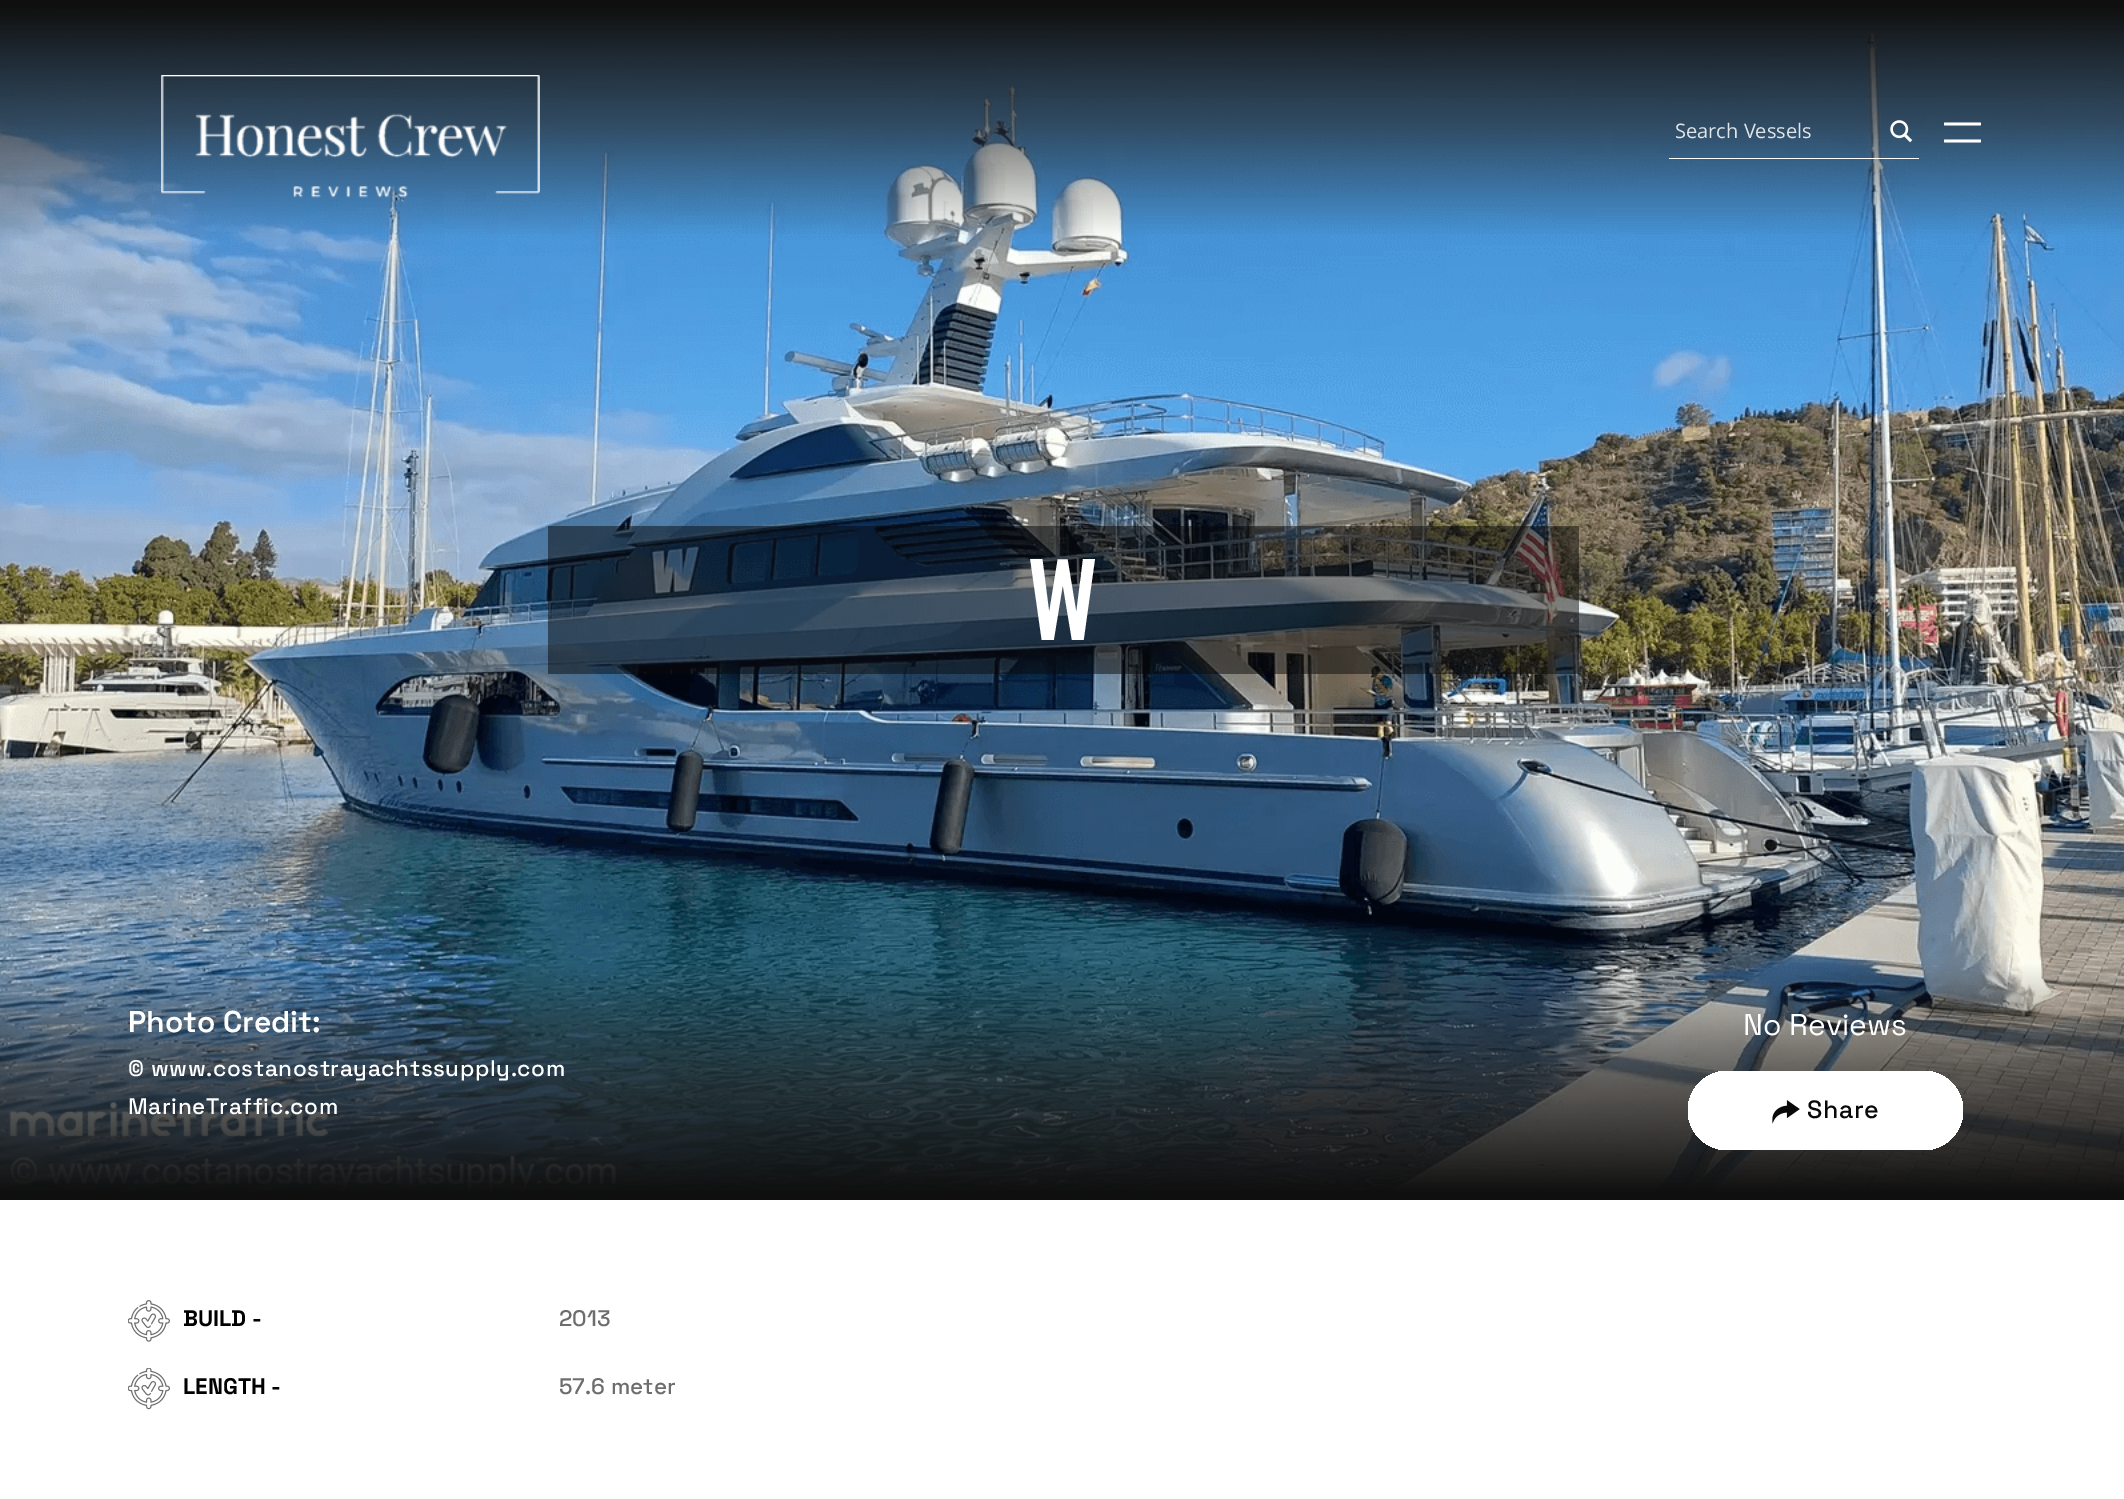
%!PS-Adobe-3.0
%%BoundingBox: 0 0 2124 1499
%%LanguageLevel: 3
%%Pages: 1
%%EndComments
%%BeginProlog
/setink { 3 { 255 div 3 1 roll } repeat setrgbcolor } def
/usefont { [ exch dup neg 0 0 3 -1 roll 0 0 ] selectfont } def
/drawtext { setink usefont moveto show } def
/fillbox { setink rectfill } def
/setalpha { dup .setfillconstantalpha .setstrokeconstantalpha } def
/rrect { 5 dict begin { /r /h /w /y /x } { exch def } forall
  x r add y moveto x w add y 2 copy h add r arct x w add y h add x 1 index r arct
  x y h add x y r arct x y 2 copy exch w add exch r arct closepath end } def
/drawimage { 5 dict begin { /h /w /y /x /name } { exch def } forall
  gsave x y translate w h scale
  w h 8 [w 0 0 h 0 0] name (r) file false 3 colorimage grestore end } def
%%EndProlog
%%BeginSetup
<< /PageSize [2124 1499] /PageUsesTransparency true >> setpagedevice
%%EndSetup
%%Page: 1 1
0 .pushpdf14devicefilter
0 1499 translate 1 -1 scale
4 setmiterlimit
0 0 2124 1499 255 255 255 fillbox
(assets/img3.rgb) 0 0 2124 1200 drawimage
(assets/img1.rgb) 161 75 379 123 drawimage
1669 158 250 1 255 255 255 fillbox
(Search Vessels) 1675 138 /OpenSans-Regular 20 224 229 233 drawtext
(assets/img2.rgb) 1890 120 23 23 drawimage
gsave
1944 114 37 37 rectclip
255 255 255 setink
2.8 setlinewidth
1 setlinecap
1945 124 moveto 1980 124 lineto 1945 141 moveto 1980 141 lineto stroke
grestore
0.5 setalpha
548 526 1031 148 9 9 9 fillbox
/Oswald-Medium 100 usefont
1 setalpha
255 255 255 setink
1027 640 moveto 0.6 0 (W) ashow
(Photo Credit:) 128 1032 /SpaceGrotesk-SemiBold 30 255 255 255 drawtext
/SpaceGrotesk-Medium 22.5 usefont
128 1076 moveto 0.6 0 (© www.costanostrayachtssupply.com) ashow
128 1114 moveto 0.6 0 (MarineTraffic.com) ashow
(No Reviews) 1743 1035 /SpaceGrotesk-Regular 30 255 255 255 drawtext
gsave
1688 1071 275 79 39.5 rrect clip newpath
1675 1066 300 90 45 rrect fill
grestore
(assets/img4.rgb) 1772 1100 28 24 drawimage
/SpaceGrotesk-Medium 25 usefont
9 9 9 setink
1807 1118 moveto 0.6 0 (Share) ashow
(assets/img5.rgb) 128 1300 42 42 drawimage
(BUILD -) 183 1326 /SpaceGrotesk-Bold 22.5 0 0 0 drawtext
(2013) 559 1326 /SpaceGrotesk-Medium 22.5 109 109 109 drawtext
(assets/img6.rgb) 128 1368 42 42 drawimage
(LENGTH -) 183 1394 /SpaceGrotesk-Bold 22.5 0 0 0 drawtext
(57.6 meter) 559 1394 /SpaceGrotesk-Medium 22.5 109 109 109 drawtext
.poppdf14devicefilter showpage
%%EOF
